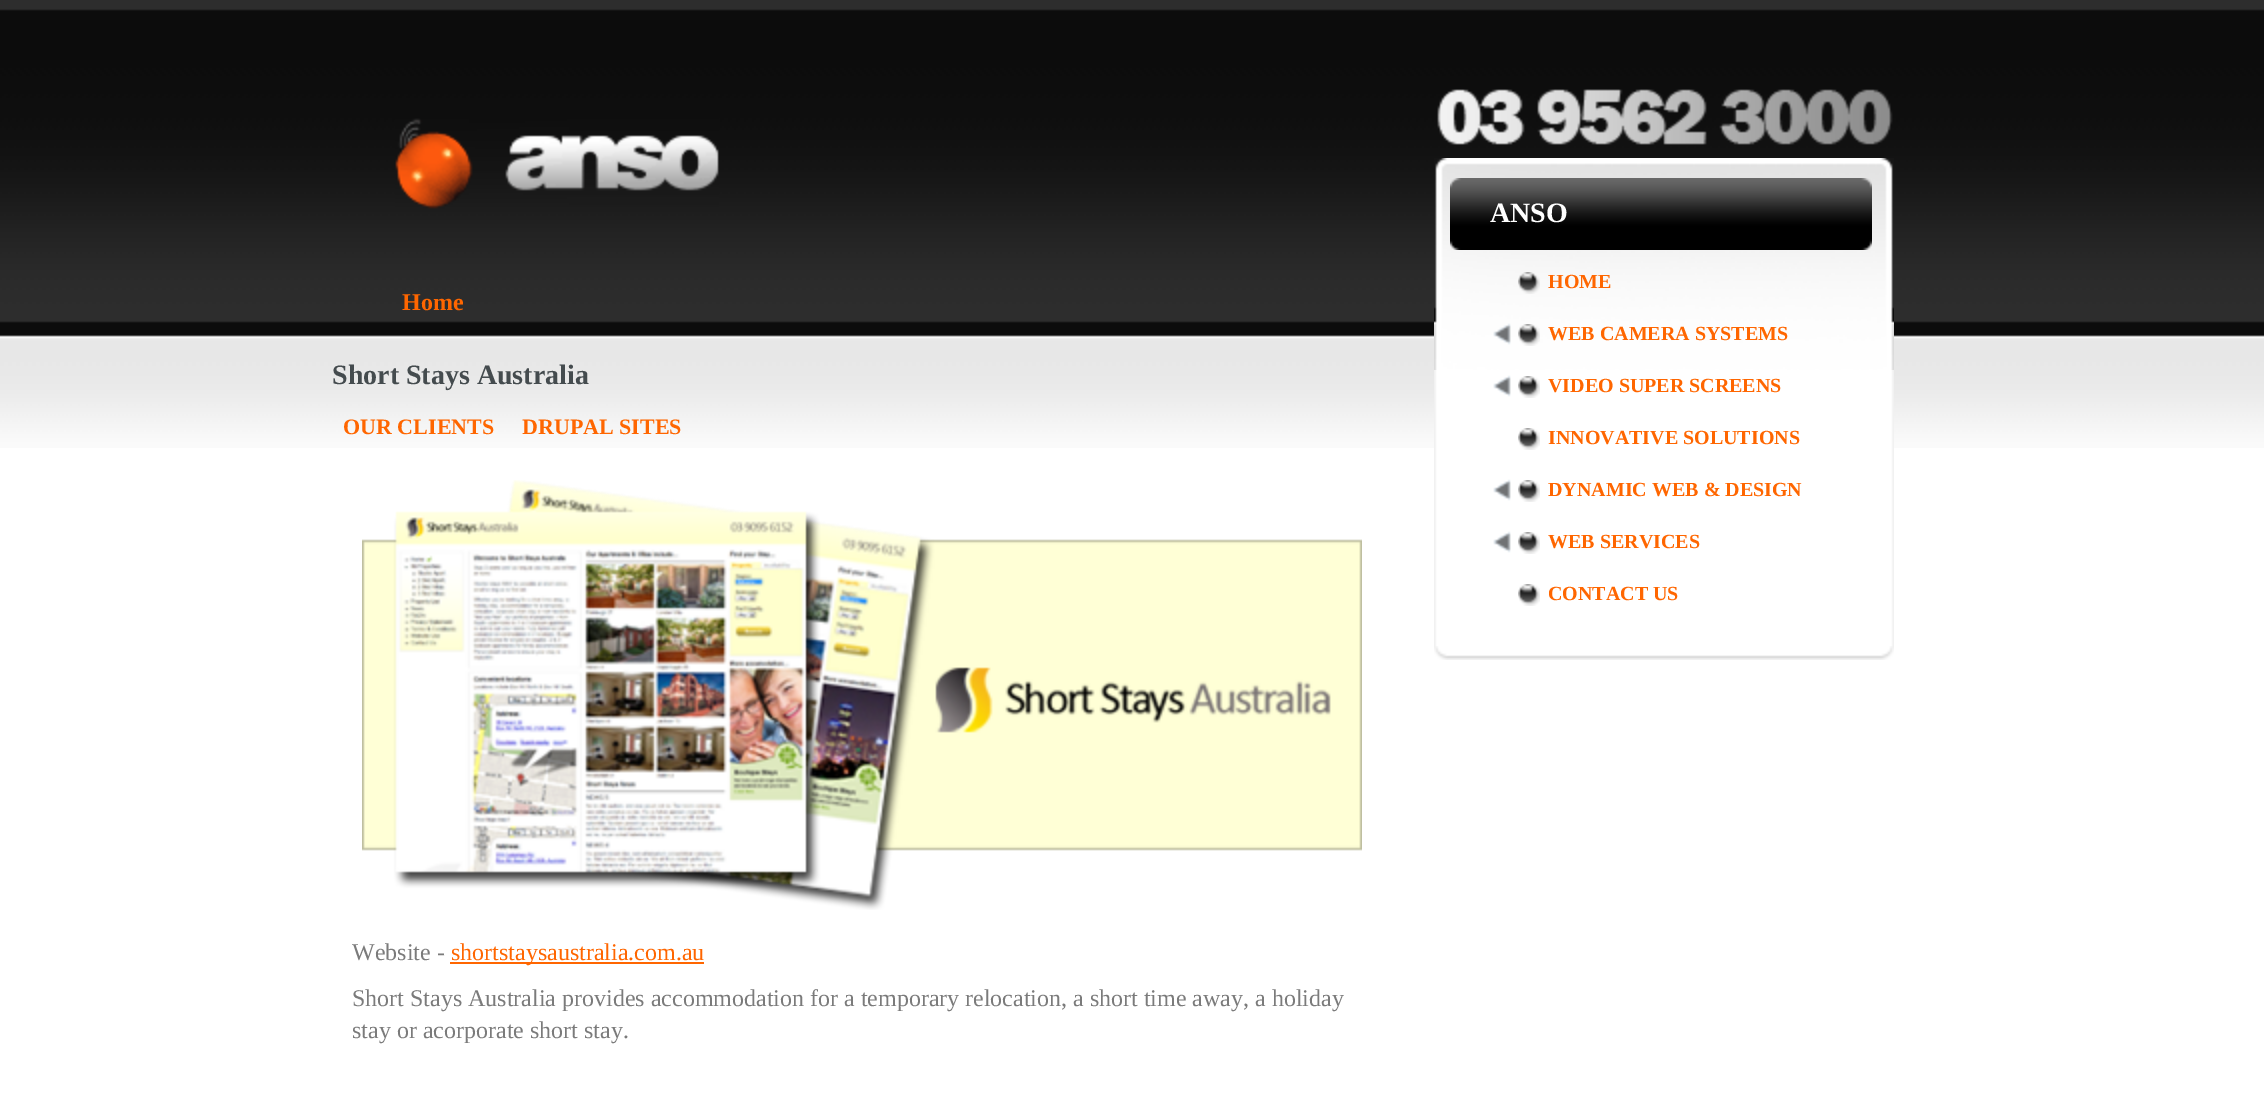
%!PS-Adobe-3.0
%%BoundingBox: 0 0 2264 1093
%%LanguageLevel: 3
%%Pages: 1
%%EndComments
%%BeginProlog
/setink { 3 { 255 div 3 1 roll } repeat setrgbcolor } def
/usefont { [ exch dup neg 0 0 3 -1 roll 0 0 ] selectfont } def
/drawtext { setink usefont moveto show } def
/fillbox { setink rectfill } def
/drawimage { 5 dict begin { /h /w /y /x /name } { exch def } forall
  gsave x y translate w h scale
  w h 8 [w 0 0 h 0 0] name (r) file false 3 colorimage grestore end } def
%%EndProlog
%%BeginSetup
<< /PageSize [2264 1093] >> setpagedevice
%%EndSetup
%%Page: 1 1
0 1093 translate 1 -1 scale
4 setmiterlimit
0 0 2264 1093 255 255 255 fillbox
(assets/img1.rgb) 0 0 2264 448 drawimage
(assets/img2.rgb) 395 118 324 91 drawimage
(Home) 402 310 /LiberationSerif-Bold 24 255 102 0 drawtext
(Short Stays Australia) 332 384 /LiberationSerif-Bold 28 68 75 78 drawtext
(OUR CLIENTS) 343 434 /LiberationSerif-Bold 22 255 102 0 drawtext
(DRUPAL SITES) 522 434 /LiberationSerif-Bold 22 255 102 0 drawtext
(assets/img3.rgb) 362 480 1000 430 drawimage
(Website -) 352 960 /LiberationSerif-Regular 24 123 123 123 drawtext
450 962 254 2 255 102 0 fillbox
(shortstaysaustralia.com.au) 451 960 /LiberationSerif-Regular 24 255 102 0 drawtext
(Short Stays Australia provides accommodation for a temporary relocation, a short time away, a holiday) 352 1006 /LiberationSerif-Regular 24 123 123 123 drawtext
(stay or acorporate short stay.) 352 1038 /LiberationSerif-Regular 24 123 123 123 drawtext
(assets/img4.rgb) 1437 89 456 56 drawimage
(assets/img5.rgb) 1434 370 460 276 drawimage
(assets/img6.rgb) 1434 158 460 212 drawimage
(assets/img7.rgb) 1434 646 460 14 drawimage
(assets/img8.rgb) 1450 178 422 72 drawimage
(ANSO) 1490 222 /LiberationSerif-Bold 28 255 255 255 drawtext
(assets/img9.rgb) 1518 272 22 22 drawimage
(HOME) 1548 288 /LiberationSerif-Bold 20 255 102 0 drawtext
(assets/img10.rgb) 1493 323 18 22 drawimage
(assets/img11.rgb) 1518 324 22 22 drawimage
(WEB CAMERA SYSTEMS) 1548 340 /LiberationSerif-Bold 20 255 102 0 drawtext
(assets/img12.rgb) 1493 375 18 22 drawimage
(assets/img13.rgb) 1518 376 22 22 drawimage
(VIDEO SUPER SCREENS) 1548 392 /LiberationSerif-Bold 20 255 102 0 drawtext
(assets/img13.rgb) 1518 428 22 22 drawimage
(INNOVATIVE SOLUTIONS) 1548 444 /LiberationSerif-Bold 20 255 102 0 drawtext
(assets/img12.rgb) 1493 479 18 22 drawimage
(assets/img13.rgb) 1518 480 22 22 drawimage
(DYNAMIC WEB & DESIGN) 1548 496 /LiberationSerif-Bold 20 255 102 0 drawtext
(assets/img12.rgb) 1493 531 18 22 drawimage
(assets/img13.rgb) 1518 532 22 22 drawimage
(WEB SERVICES) 1548 548 /LiberationSerif-Bold 20 255 102 0 drawtext
(assets/img13.rgb) 1518 584 22 22 drawimage
(CONTACT US) 1548 600 /LiberationSerif-Bold 20 255 102 0 drawtext
showpage
%%EOF
